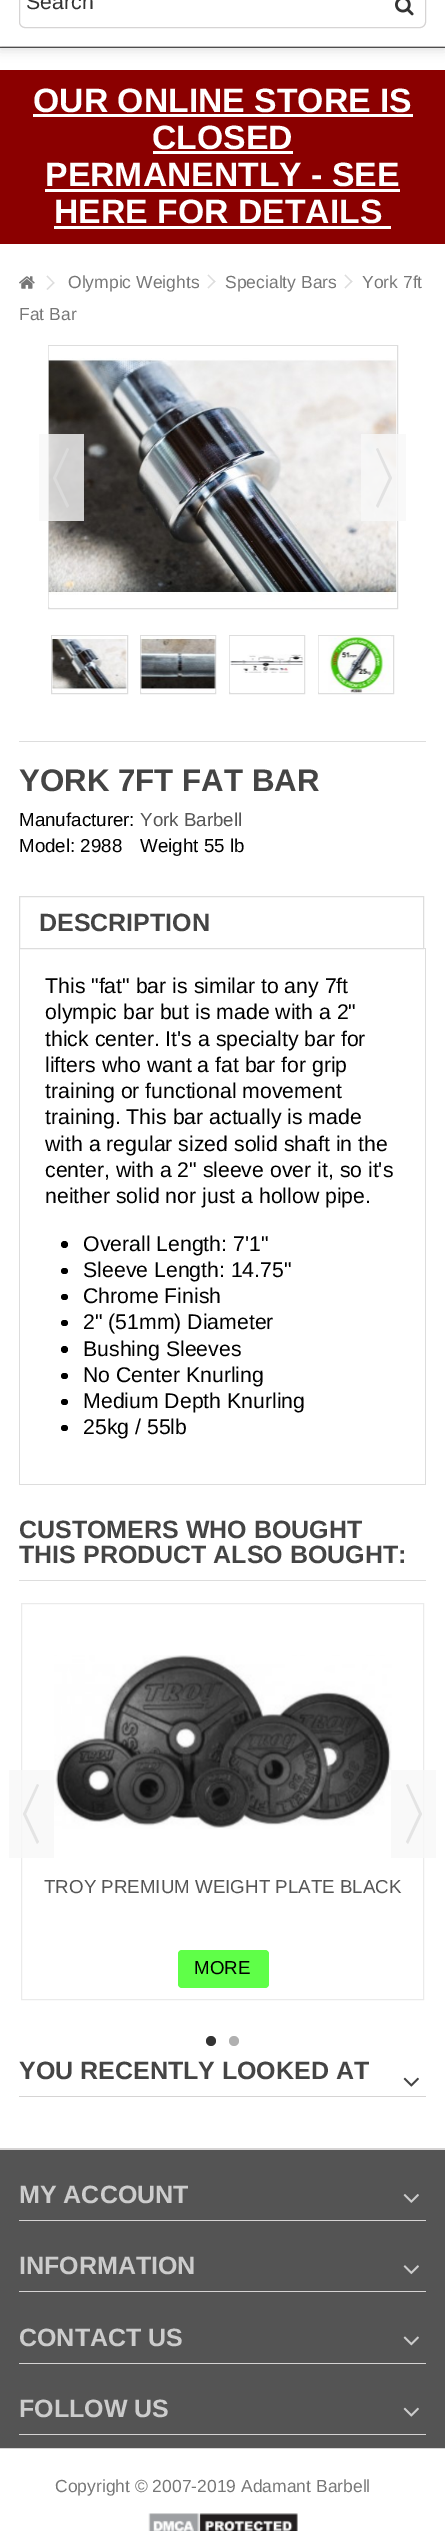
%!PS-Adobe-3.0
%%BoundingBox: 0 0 445 2531
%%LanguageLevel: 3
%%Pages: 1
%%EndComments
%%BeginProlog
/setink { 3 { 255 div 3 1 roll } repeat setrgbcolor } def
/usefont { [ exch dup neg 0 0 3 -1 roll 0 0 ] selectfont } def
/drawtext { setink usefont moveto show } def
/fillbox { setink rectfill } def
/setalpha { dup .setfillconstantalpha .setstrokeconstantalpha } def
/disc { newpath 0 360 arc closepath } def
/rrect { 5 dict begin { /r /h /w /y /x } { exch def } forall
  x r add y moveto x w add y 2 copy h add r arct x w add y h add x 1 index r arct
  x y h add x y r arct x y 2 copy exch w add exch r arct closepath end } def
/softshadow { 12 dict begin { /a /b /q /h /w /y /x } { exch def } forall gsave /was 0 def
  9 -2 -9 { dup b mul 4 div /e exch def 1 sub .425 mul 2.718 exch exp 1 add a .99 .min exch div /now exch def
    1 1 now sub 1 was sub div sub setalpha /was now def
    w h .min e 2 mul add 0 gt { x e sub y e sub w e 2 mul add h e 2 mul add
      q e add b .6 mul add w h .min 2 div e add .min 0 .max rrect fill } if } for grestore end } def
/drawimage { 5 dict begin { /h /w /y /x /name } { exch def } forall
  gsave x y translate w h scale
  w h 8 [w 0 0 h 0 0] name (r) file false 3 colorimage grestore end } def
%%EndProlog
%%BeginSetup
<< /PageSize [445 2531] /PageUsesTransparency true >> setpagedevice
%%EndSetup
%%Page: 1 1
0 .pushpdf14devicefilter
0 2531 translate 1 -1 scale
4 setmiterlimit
0 0 445 2531 255 255 255 fillbox
0 47 445 1 85 85 85 fillbox
0 46 445 1 214 212 212 fillbox
0 0 0 setink
0 -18 445 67 0 6 0.15 softshadow
0 0 445 46 255 255 255 fillbox
214 212 212 setink
19.5 -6.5 406 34 5.5 rrect stroke
(Search) 26 9 /LiberationSans-Regular 21.25 51 51 51 drawtext
(assets/img1.rgb) 395 0 19 16 drawimage
0 70 445 174 139 0 0 fillbox
(OUR ONLINE STORE IS) 33 112 /LiberationSans-Bold 33.75 255 255 255 drawtext
33 114 380 3 255 255 255 fillbox
(CLOSED) 152 149 /LiberationSans-Bold 33.75 255 255 255 drawtext
153 151 140 3 255 255 255 fillbox
(PERMANENTLY - SEE) 45 186 /LiberationSans-Bold 33.75 255 255 255 drawtext
45 189 355 3 255 255 255 fillbox
(HERE FOR DETAILS) 54 223 /LiberationSans-Bold 33.75 255 255 255 drawtext
54 226 337 3 255 255 255 fillbox
(assets/img2.rgb) 19 276 16 13 drawimage
221 221 221 setink
47.5 275.5 moveto 54.5 283 lineto 53.5 283.5 lineto 46.5 276.5 lineto closepath fill
53.5 282 moveto 54.5 283 lineto 47.5 290 lineto 46.5 289 lineto closepath fill
(Olympic Weights) 68 288 /LiberationSans-Regular 17.5 119 119 119 drawtext
221 221 221 setink
208.5 274.5 moveto 215.5 281.5 lineto 214.5 282.5 lineto 207.5 275.5 lineto closepath fill
214.5 280.5 moveto 215.5 281.5 lineto 208.5 288.5 lineto 207.5 287.5 lineto closepath fill
(Specialty Bars) 225 288 /LiberationSans-Regular 17.5 119 119 119 drawtext
221 221 221 setink
345.5 274.5 moveto 352.5 281.5 lineto 351.5 282.5 lineto 344.5 275.5 lineto closepath fill
351.5 280.5 moveto 352.5 281.5 lineto 345.5 288.5 lineto 344.5 287.5 lineto closepath fill
(York 7ft) 362 288 /LiberationSans-Regular 17.5 119 119 119 drawtext
(Fat Bar) 19 320 /LiberationSans-Regular 17.5 119 119 119 drawtext
221 221 221 setink
48.5 345.5 349 263 rectstroke
(assets/img3.rgb) 48 346 349 261 drawimage
0.8 setalpha
39 434 45 87 248 248 248 fillbox
221 221 221 setink
56 478 moveto 69 449 lineto 67 448 lineto 53 478 lineto closepath 67 508 moveto 69 506 lineto 56 478 lineto 53 478 lineto closepath fill
361 434 45 87 248 248 248 fillbox
221 221 221 setink
389 478 moveto 376 449 lineto 378 448 lineto 392 478 lineto closepath 378 508 moveto 376 506 lineto 389 478 lineto 392 478 lineto closepath fill
1 setalpha
51.5 635.5 76 58 rectstroke
(assets/img4.rgb) 52 636 75 54 drawimage
140.5 635.5 75 58 rectstroke
(assets/img5.rgb) 140 636 76 56 drawimage
229.5 635.5 75 58 rectstroke
(assets/img6.rgb) 229 636 76 56 drawimage
318.5 635.5 75 58 rectstroke
(assets/img7.rgb) 318 636 73 57 drawimage
19 741 407 1 221 221 221 fillbox
(YORK 7FT FAT BAR) 19 791 /LiberationSans-Bold 31.25 68 68 68 drawtext
(Manufacturer:) 19 826 /LiberationSans-Regular 18.75 0 0 0 drawtext
(York Barbell) 140 826 /LiberationSans-Regular 18.75 85 85 85 drawtext
(Model: 2988) 19 852 /LiberationSans-Regular 18.75 0 0 0 drawtext
(Weight 55 lb) 140 852 /LiberationSans-Regular 18.75 0 0 0 drawtext
424 948 2 1 221 221 221 fillbox
19.5 896.5 404 52 rectstroke
(DESCRIPTION) 39 931 /LiberationSans-Bold 25 68 68 68 drawtext
425 949 1 536 221 221 221 fillbox
19 1484 407 1 221 221 221 fillbox
19 949 1 536 221 221 221 fillbox
(This "fat" bar is similar to any 7ft) 45 993 /LiberationSans-Regular 21.25 0 0 0 drawtext
(olympic bar but is made with a 2") 45 1019 /LiberationSans-Regular 21.25 0 0 0 drawtext
(thick center. It's a specialty bar for) 45 1046 /LiberationSans-Regular 21.25 0 0 0 drawtext
(lifters who want a fat bar for grip) 45 1072 /LiberationSans-Regular 21.25 0 0 0 drawtext
(training or functional movement) 45 1098 /LiberationSans-Regular 21.25 0 0 0 drawtext
(training. This bar actually is made) 45 1124 /LiberationSans-Regular 21.25 0 0 0 drawtext
(with a regular sized solid shaft in the) 45 1151 /LiberationSans-Regular 21.25 0 0 0 drawtext
(center, with a 2" sleeve over it, so it's) 45 1177 /LiberationSans-Regular 21.25 0 0 0 drawtext
(neither solid nor just a hollow pipe.) 45 1203 /LiberationSans-Regular 21.25 0 0 0 drawtext
64.5 1244.5 3.5 disc fill
(Overall Length: 7'1") 83 1251 /LiberationSans-Regular 21.25 0 0 0 drawtext
61 1268 7 6 3 rrect fill
(Sleeve Length: 14.75") 83 1277 /LiberationSans-Regular 21.25 0 0 0 drawtext
61 1294 7 6 3 rrect fill
(Chrome Finish) 83 1303 /LiberationSans-Regular 21.25 0 0 0 drawtext
61 1320 7 6 3 rrect fill
(2" \(51mm\) Diameter) 83 1329 /LiberationSans-Regular 21.25 0 0 0 drawtext
64.5 1349.5 3.5 disc fill
(Bushing Sleeves) 83 1356 /LiberationSans-Regular 21.25 0 0 0 drawtext
61 1373 7 6 3 rrect fill
(No Center Knurling) 83 1382 /LiberationSans-Regular 21.25 0 0 0 drawtext
61 1399 7 6 3 rrect fill
(Medium Depth Knurling) 83 1408 /LiberationSans-Regular 21.25 0 0 0 drawtext
61 1425 7 6 3 rrect fill
(25kg / 55lb) 83 1434 /LiberationSans-Regular 21.25 0 0 0 drawtext
19 1580 407 1 221 221 221 fillbox
(CUSTOMERS WHO BOUGHT) 19 1538 /LiberationSans-Bold 25 68 68 68 drawtext
(THIS PRODUCT ALSO BOUGHT:) 19 1563 /LiberationSans-Bold 25 68 68 68 drawtext
235 235 235 setink
21.5 1603.5 402 396 rectstroke
0.8 setalpha
9 1770 45 88 248 248 248 fillbox
1 setalpha
228 228 228 setink
26 1814 moveto 39 1785 lineto 37 1784 lineto 23 1814 lineto closepath 37 1844 moveto 39 1842 lineto 26 1814 lineto 23 1814 lineto closepath fill
(assets/img8.rgb) 54 1655 338 174 drawimage
0.8 setalpha
391 1770 45 88 248 248 248 fillbox
1 setalpha
228 228 228 setink
419 1814 moveto 406 1785 lineto 408 1784 lineto 422 1814 lineto closepath 408 1844 moveto 406 1842 lineto 419 1814 lineto 422 1814 lineto closepath fill
(TROY PREMIUM WEIGHT PLATE BLACK) 44 1893 /LiberationSans-Regular 18.75 85 85 85 drawtext
95 255 72 setink
178 1950 91 38 4 rrect fill
(MORE) 194 1974 /LiberationSans-Regular 18.75 0 0 0 drawtext
51 51 51 setink
211 2041 5 disc fill
176 176 176 setink
234 2041 5 disc fill
19 2096 407 1 214 212 212 fillbox
(YOU RECENTLY LOOKED AT) 19 2079 /LiberationSans-Bold 25 68 68 68 drawtext
(assets/img9.rgb) 403 2077 16 10 drawimage
0 2148 445 2 214 212 212 fillbox
0 2150 445 298 84 84 84 fillbox
0 2448 445 1 214 212 212 fillbox
19 2220 407 1 214 212 212 fillbox
(MY ACCOUNT) 19 2203 /LiberationSans-Bold 25 204 204 204 drawtext
(assets/img10.rgb) 403 2194 16 9 drawimage
19 2291 407 1 214 212 212 fillbox
(INFORMATION) 19 2274 /LiberationSans-Bold 25 204 204 204 drawtext
(assets/img11.rgb) 403 2265 16 10 drawimage
19 2363 407 1 214 212 212 fillbox
(CONTACT US) 19 2346 /LiberationSans-Bold 25 204 204 204 drawtext
(assets/img12.rgb) 403 2336 16 10 drawimage
19 2434 407 1 214 212 212 fillbox
(FOLLOW US) 19 2417 /LiberationSans-Bold 25 204 204 204 drawtext
(assets/img13.rgb) 403 2407 16 10 drawimage
(Copyright © 2007-2019 Adamant Barbell) 55 2492 /LiberationSans-Regular 17.5 119 119 119 drawtext
(assets/img14.rgb) 148 2513 150 18 drawimage
.poppdf14devicefilter showpage
%%EOF
